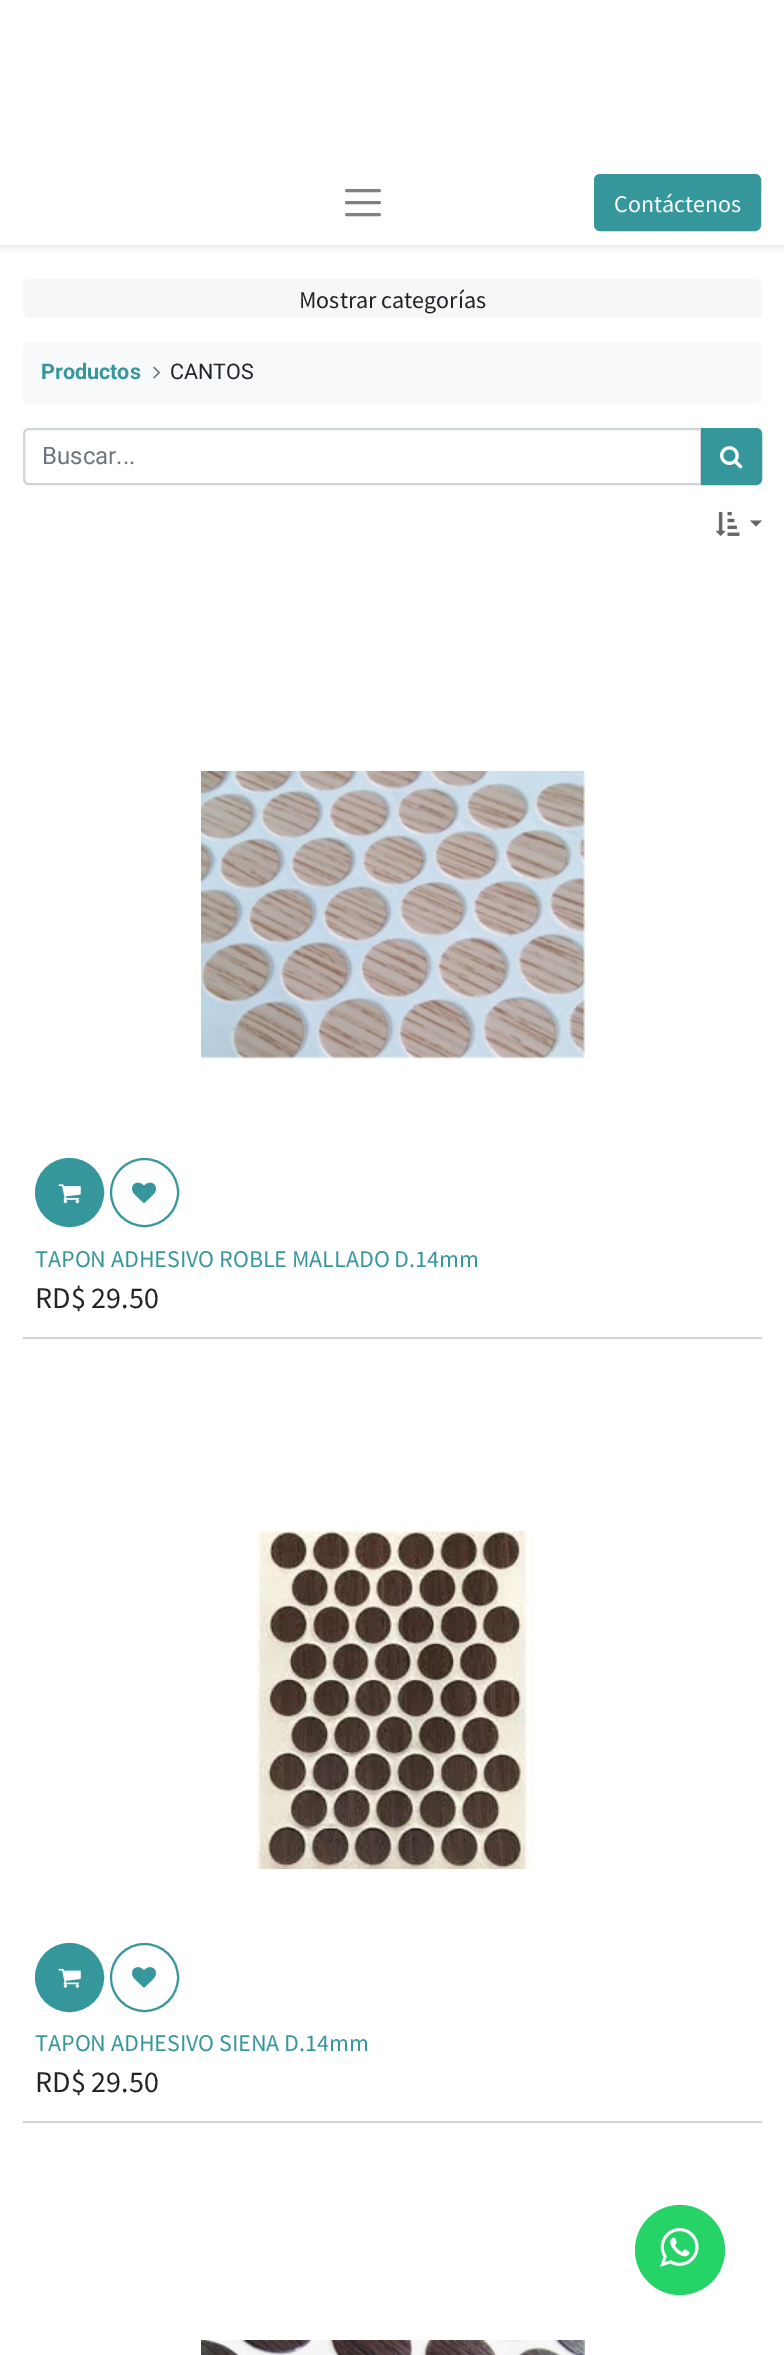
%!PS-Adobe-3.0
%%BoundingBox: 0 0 784 2355
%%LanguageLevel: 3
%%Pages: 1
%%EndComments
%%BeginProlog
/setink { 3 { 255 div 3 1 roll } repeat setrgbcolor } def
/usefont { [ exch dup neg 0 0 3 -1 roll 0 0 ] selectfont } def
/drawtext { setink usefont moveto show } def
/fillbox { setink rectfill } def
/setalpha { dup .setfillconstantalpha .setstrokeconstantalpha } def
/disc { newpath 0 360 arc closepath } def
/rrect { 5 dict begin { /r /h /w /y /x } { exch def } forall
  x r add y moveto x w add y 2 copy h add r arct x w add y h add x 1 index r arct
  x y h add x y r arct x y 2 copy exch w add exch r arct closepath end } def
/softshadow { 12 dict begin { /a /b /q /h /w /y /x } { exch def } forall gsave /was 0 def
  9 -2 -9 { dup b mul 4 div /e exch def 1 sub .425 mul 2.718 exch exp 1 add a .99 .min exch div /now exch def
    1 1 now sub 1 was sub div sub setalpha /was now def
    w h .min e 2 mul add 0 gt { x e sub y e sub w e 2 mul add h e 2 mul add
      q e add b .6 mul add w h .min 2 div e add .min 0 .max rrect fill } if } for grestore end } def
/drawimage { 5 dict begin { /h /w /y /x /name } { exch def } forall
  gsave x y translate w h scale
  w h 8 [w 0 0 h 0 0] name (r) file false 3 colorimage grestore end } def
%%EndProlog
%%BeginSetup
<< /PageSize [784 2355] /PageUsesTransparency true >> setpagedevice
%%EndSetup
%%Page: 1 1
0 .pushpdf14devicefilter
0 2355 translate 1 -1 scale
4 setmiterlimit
0 0 784 2355 255 255 255 fillbox
0 0 0 setink
0 164 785 84 0 3 0.07 softshadow
0 161 784 84 255 255 255 fillbox
42 194 2 1 251 250 251 fillbox
128 128 128 setink
3 setlinewidth
1 setlinecap
346.5 190.5 moveto 379.5 190.5 lineto 346.5 202.5 moveto 379.5 202.5 lineto 346.5 214.5 moveto 379.5 214.5 lineto stroke
53 151 156 setink
595 175 165 55 5 rrect gsave fill grestore
2 setlinewidth
0 setlinecap
stroke
(Contáctenos) 614 212 /SourceSansPro-Regular 24 255 255 255 drawtext
247 247 247 setink
23 279 739 39 6 rrect fill
(Mostrar categorías) 299 308 /SourceSansPro-Regular 24 33 37 41 drawtext
248 249 250 setink
23 342 739 62 6 rrect fill
(Productos) 41 379 /Roboto-Bold 21.5 53 151 156 drawtext
(assets/img1.rgb) 153 366 8 13 drawimage
(CANTOS) 170 379 /Roboto-Regular 21.5 33 37 41 drawtext
206 212 218 setink
29 429 moveto 701 429 lineto 701 484 lineto 29 484 lineto 26 484 24 482 24 479 curveto 24 434 lineto 24 431 26 429 29 429 curveto closepath stroke
(Buscar...) 42 464 /Roboto-Regular 24 108 117 125 drawtext
53 151 156 setink
702 429 moveto 756 429 lineto 759 429 761 431 761 434 curveto 761 479 lineto 761 482 759 484 756 484 curveto 702 484 lineto closepath gsave fill grestore
stroke
(assets/img2.rgb) 720 446 23 23 drawimage
(assets/img3.rgb) 716 511 24 25 drawimage
100 102 105 setink
750 520.5 moveto 762 520.5 lineto 756 526.5 lineto closepath fill
23 1337 739 2 206 212 218 fillbox
(assets/img4.rgb) 201 771 384 288 drawimage
53 151 156 setink
69.5 1192.5 33.5 disc gsave fill grestore
stroke
(assets/img5.rgb) 58 1184 23 20 drawimage
144.5 1192.5 33.5 disc stroke
(assets/img6.rgb) 132 1182 24 22 drawimage
(TAPON ADHESIVO ROBLE MALLADO D.14mm) 35 1267 /SourceSansPro-Regular 24 53 151 156 drawtext
(RD$ 29.50) 35 1308 /SourceSansPro-Regular 30 33 37 41 drawtext
23 2121 739 2 206 212 218 fillbox
(assets/img7.rgb) 254 1531 280 338 drawimage
53 151 156 setink
69.5 1977.5 33.5 disc gsave fill grestore
stroke
(assets/img8.rgb) 58 1968 23 20 drawimage
144.5 1977.5 33.5 disc stroke
(assets/img9.rgb) 132 1967 24 21 drawimage
(TAPON ADHESIVO SIENA D.14mm) 35 2051 /SourceSansPro-Regular 24 53 151 156 drawtext
(RD$ 29.50) 35 2092 /SourceSansPro-Regular 30 33 37 41 drawtext
(assets/img10.rgb) 201 2340 384 15 drawimage
37 211 102 setink
680 2250 45 disc fill
(assets/img11.rgb) 660 2228 39 39 drawimage
.poppdf14devicefilter showpage
%%EOF
